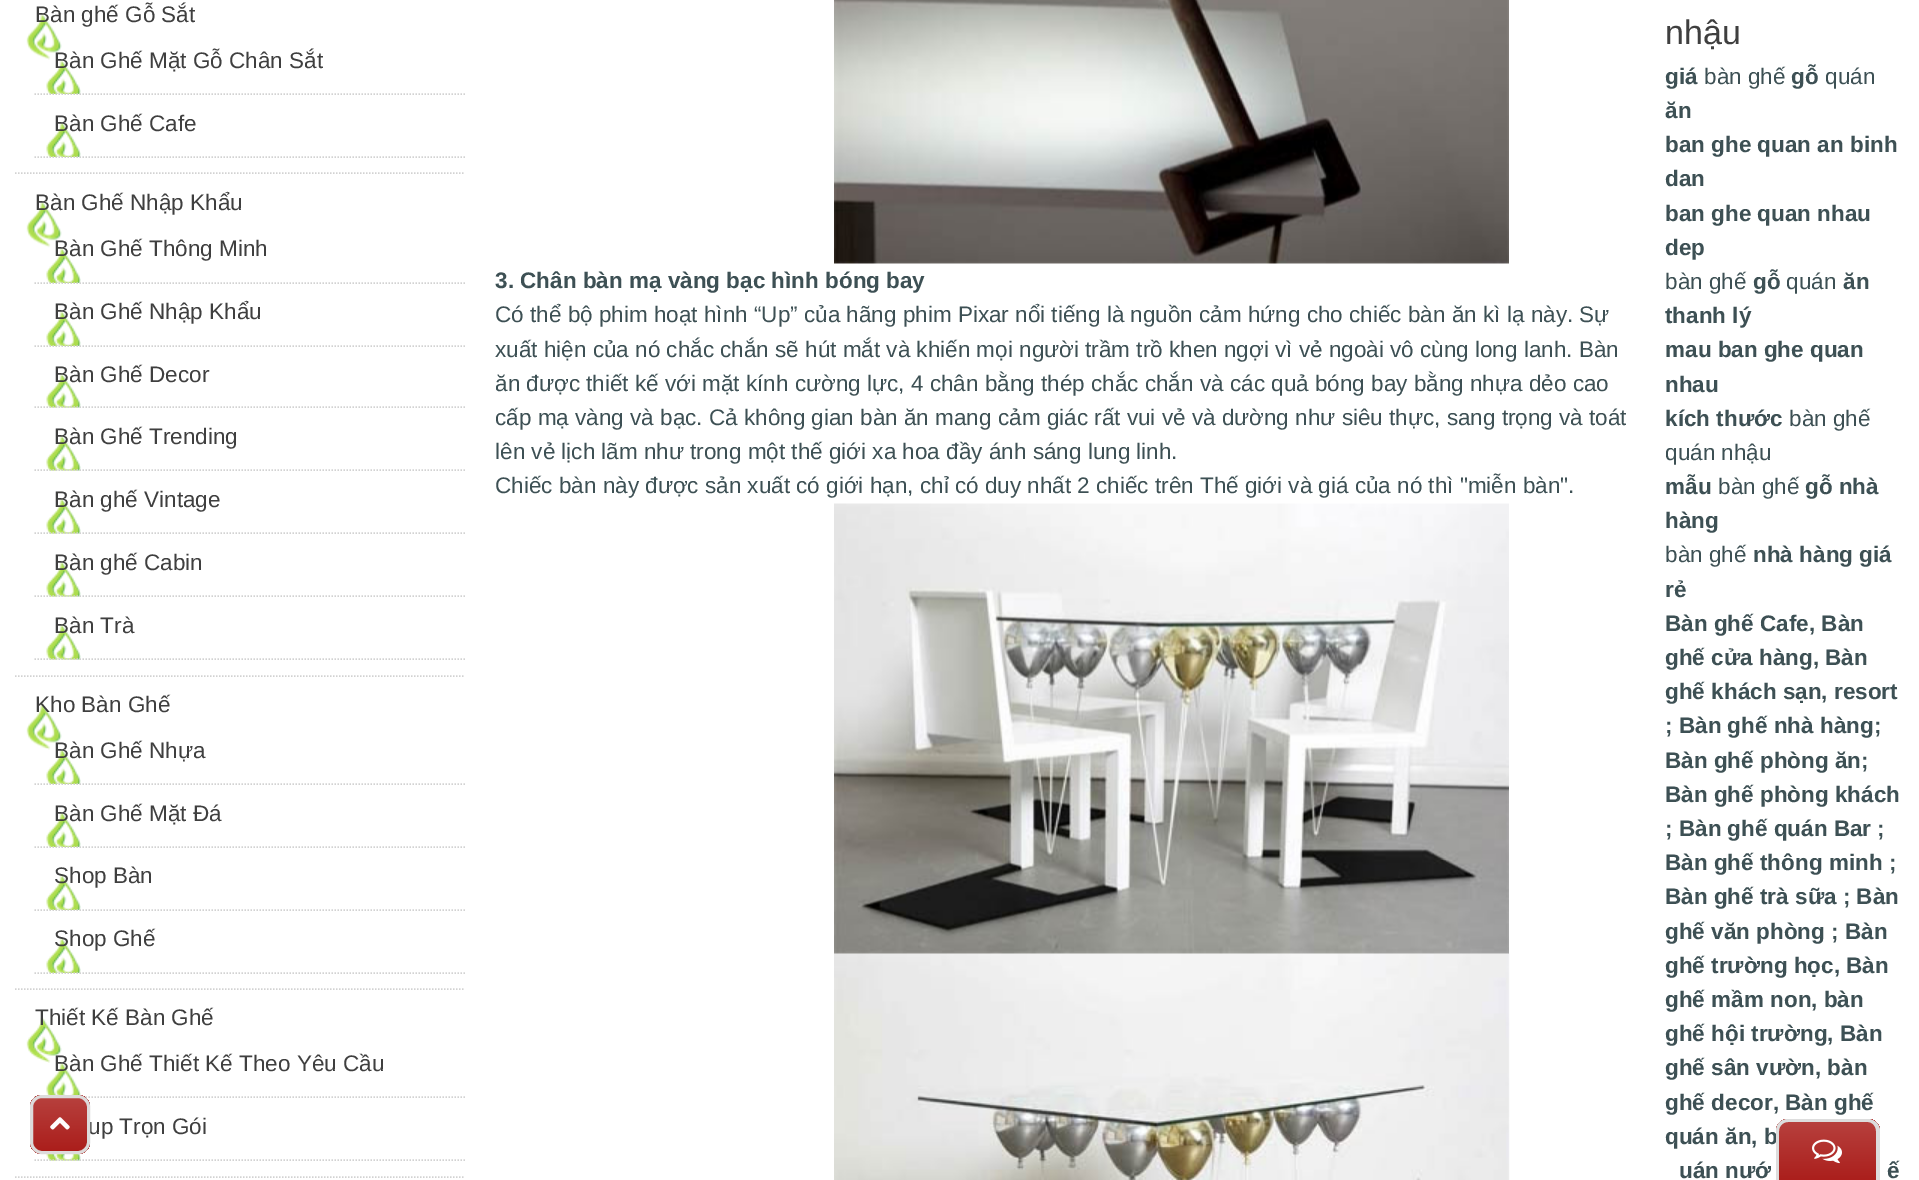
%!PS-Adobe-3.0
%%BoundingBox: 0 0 1919 1180
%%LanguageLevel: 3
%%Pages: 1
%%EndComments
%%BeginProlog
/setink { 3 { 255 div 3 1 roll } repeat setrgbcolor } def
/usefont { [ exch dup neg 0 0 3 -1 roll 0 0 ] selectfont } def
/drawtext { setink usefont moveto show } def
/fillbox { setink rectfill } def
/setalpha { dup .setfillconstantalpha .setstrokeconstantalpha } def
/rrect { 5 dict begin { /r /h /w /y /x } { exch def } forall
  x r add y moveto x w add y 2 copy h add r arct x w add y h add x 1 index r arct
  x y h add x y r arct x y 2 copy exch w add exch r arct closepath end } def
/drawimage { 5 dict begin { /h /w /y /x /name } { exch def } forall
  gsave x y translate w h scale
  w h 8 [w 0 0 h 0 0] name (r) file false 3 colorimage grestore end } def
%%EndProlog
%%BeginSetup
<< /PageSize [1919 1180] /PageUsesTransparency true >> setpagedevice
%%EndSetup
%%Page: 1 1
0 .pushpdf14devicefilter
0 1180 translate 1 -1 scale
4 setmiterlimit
0 0 1919 1180 255 255 255 fillbox
(assets/img1.rgb) 26 13 36 47 drawimage
210 210 210 setink
1.5 setlinewidth
[1.5 1.5] 0 setdash
15 173 moveto 465 173 lineto stroke
(Bàn ghế Gỗ Sắt) 35 22 /LiberationSans-Regular 22.5 63 63 63 drawtext
(assets/img2.rgb) 46 60 35 34 drawimage
210 210 210 setink
34.5 94 moveto 465 94 lineto stroke
(Bàn Ghế Mặt Gỗ Chân Sắt) 54 68 /LiberationSans-Regular 22.5 63 63 63 drawtext
(assets/img3.rgb) 46 122 35 35 drawimage
210 210 210 setink
34.5 157 moveto 465 157 lineto stroke
(Bàn Ghế Cafe) 54 131 /LiberationSans-Regular 22.5 63 63 63 drawtext
(assets/img4.rgb) 26 201 36 47 drawimage
210 210 210 setink
15 676 moveto 465 676 lineto stroke
(Bàn Ghế Nhập Khẩu) 35 210 /LiberationSans-Regular 22.5 63 63 63 drawtext
(assets/img3.rgb) 46 248 35 35 drawimage
210 210 210 setink
34.5 283 moveto 465 283 lineto stroke
(Bàn Ghế Thông Minh) 54 256 /LiberationSans-Regular 22.5 63 63 63 drawtext
(assets/img3.rgb) 46 311 35 35 drawimage
210 210 210 setink
34.5 346 moveto 465 346 lineto stroke
(Bàn Ghế Nhập Khẩu) 54 319 /LiberationSans-Regular 22.5 63 63 63 drawtext
(assets/img5.rgb) 46 373 35 35 drawimage
210 210 210 setink
34.5 407 moveto 465 407 lineto stroke
(Bàn Ghế Decor) 54 382 /LiberationSans-Regular 22.5 63 63 63 drawtext
(assets/img6.rgb) 46 435 35 36 drawimage
210 210 210 setink
34.5 470 moveto 465 470 lineto stroke
(Bàn Ghế Trending) 54 444 /LiberationSans-Regular 22.5 63 63 63 drawtext
(assets/img6.rgb) 46 498 35 36 drawimage
210 210 210 setink
34.5 533 moveto 465 533 lineto stroke
(Bàn ghế Vintage) 54 507 /LiberationSans-Regular 22.5 63 63 63 drawtext
(assets/img6.rgb) 46 561 35 36 drawimage
210 210 210 setink
34.5 596 moveto 465 596 lineto stroke
(Bàn ghế Cabin) 54 570 /LiberationSans-Regular 22.5 63 63 63 drawtext
(assets/img6.rgb) 46 624 35 36 drawimage
210 210 210 setink
34.5 659 moveto 465 659 lineto stroke
(Bàn Trà) 54 633 /LiberationSans-Regular 22.5 63 63 63 drawtext
(assets/img7.rgb) 26 703 36 47 drawimage
210 210 210 setink
15 989 moveto 465 989 lineto stroke
(Kho Bàn Ghế) 35 712 /LiberationSans-Regular 22.5 63 63 63 drawtext
(assets/img8.rgb) 46 749 35 35 drawimage
210 210 210 setink
34.5 784 moveto 465 784 lineto stroke
(Bàn Ghế Nhựa) 54 758 /LiberationSans-Regular 22.5 63 63 63 drawtext
(assets/img3.rgb) 46 812 35 35 drawimage
210 210 210 setink
34.5 847 moveto 465 847 lineto stroke
(Bàn Ghế Mặt Đá) 54 821 /LiberationSans-Regular 22.5 63 63 63 drawtext
(assets/img3.rgb) 46 875 35 35 drawimage
210 210 210 setink
34.5 910 moveto 465 910 lineto stroke
(Shop Bàn) 54 883 /LiberationSans-Regular 22.5 63 63 63 drawtext
(assets/img3.rgb) 46 938 35 35 drawimage
210 210 210 setink
34.5 973 moveto 465 973 lineto stroke
(Shop Ghế) 54 946 /LiberationSans-Regular 22.5 63 63 63 drawtext
(assets/img9.rgb) 26 1017 36 46 drawimage
210 210 210 setink
15 1177 moveto 465 1177 lineto stroke
(Thiết Kế Bàn Ghế) 35 1025 /LiberationSans-Regular 22.5 63 63 63 drawtext
(assets/img10.rgb) 46 1062 35 36 drawimage
210 210 210 setink
34.5 1097 moveto 465 1097 lineto stroke
(Bàn Ghế Thiết Kế Theo Yêu Cầu) 54 1071 /LiberationSans-Regular 22.5 63 63 63 drawtext
(assets/img6.rgb) 46 1125 35 36 drawimage
210 210 210 setink
34.5 1160 moveto 465 1160 lineto stroke
(up Trọn Gói) 88 1134 /LiberationSans-Regular 22.5 63 63 63 drawtext
(assets/img11.rgb) 834 0 675 264 drawimage
(3. Chân bàn mạ vàng bạc hình bóng bay) 495 288 /LiberationSans-Bold 22.5 61 80 84 drawtext
(Có thể bộ phim hoạt hình “Up” của hãng phim Pixar nổi tiếng là nguồn cảm hứng cho chiếc bàn ăn kì lạ này. Sự) 495 322 /LiberationSans-Regular 22.5 61 80 84 drawtext
(xuất hiện của nó chắc chắn sẽ hút mắt và khiến mọi người trầm trồ khen ngợi vì vẻ ngoài vô cùng long lanh. Bàn) 495 357 /LiberationSans-Regular 22.5 61 80 84 drawtext
(ăn được thiết kế với mặt kính cường lực, 4 chân bằng thép chắc chắn và các quả bóng bay bằng nhựa dẻo cao) 495 391 /LiberationSans-Regular 22.5 61 80 84 drawtext
(cấp mạ vàng và bạc. Cả không gian bàn ăn mang cảm giác rất vui vẻ và dường như siêu thực, sang trọng và toát) 495 425 /LiberationSans-Regular 22.5 61 80 84 drawtext
(lên vẻ lịch lãm như trong một thế giới xa hoa đầy ánh sáng lung linh.) 495 459 /LiberationSans-Regular 22.5 61 80 84 drawtext
(Chiếc bàn này được sản xuất có giới hạn, chỉ có duy nhất 2 chiếc trên Thế giới và giá của nó thì "miễn bàn".) 495 493 /LiberationSans-Regular 22.5 61 80 84 drawtext
(assets/img12.rgb) 834 503 675 451 drawimage
(assets/img13.rgb) 834 953 676 227 drawimage
(nhậu) 1665 44 /LiberationSans-Regular 34 63 63 63 drawtext
(giá) 1665 84 /LiberationSans-Bold 22.5 61 80 84 drawtext
(bàn ghế) 1704 84 /LiberationSans-Regular 22.5 61 80 84 drawtext
(gỗ) 1791 84 /LiberationSans-Bold 22.5 61 80 84 drawtext
(quán) 1825 84 /LiberationSans-Regular 22.5 61 80 84 drawtext
(ăn) 1665 118 /LiberationSans-Bold 22.5 61 80 84 drawtext
(ban ghe quan an binh) 1665 152 /LiberationSans-Bold 22.5 61 80 84 drawtext
(dan) 1665 186 /LiberationSans-Bold 22.5 61 80 84 drawtext
(ban ghe quan nhau) 1665 221 /LiberationSans-Bold 22.5 61 80 84 drawtext
(dep) 1665 255 /LiberationSans-Bold 22.5 61 80 84 drawtext
(bàn ghế) 1665 289 /LiberationSans-Regular 22.5 61 80 84 drawtext
(gỗ) 1753 289 /LiberationSans-Bold 22.5 61 80 84 drawtext
(quán) 1786 289 /LiberationSans-Regular 22.5 61 80 84 drawtext
(ăn) 1843 289 /LiberationSans-Bold 22.5 61 80 84 drawtext
(thanh lý) 1665 323 /LiberationSans-Bold 22.5 61 80 84 drawtext
(mau ban ghe quan) 1665 357 /LiberationSans-Bold 22.5 61 80 84 drawtext
(nhau) 1665 392 /LiberationSans-Bold 22.5 61 80 84 drawtext
(kích thước) 1665 426 /LiberationSans-Bold 22.5 61 80 84 drawtext
(bàn ghế) 1789 426 /LiberationSans-Regular 22.5 61 80 84 drawtext
(quán nhậu) 1665 460 /LiberationSans-Regular 22.5 61 80 84 drawtext
(mẫu) 1665 494 /LiberationSans-Bold 22.5 61 80 84 drawtext
(bàn ghế) 1718 494 /LiberationSans-Regular 22.5 61 80 84 drawtext
(gỗ nhà) 1805 494 /LiberationSans-Bold 22.5 61 80 84 drawtext
(hàng) 1665 528 /LiberationSans-Bold 22.5 61 80 84 drawtext
(bàn ghế) 1665 562 /LiberationSans-Regular 22.5 61 80 84 drawtext
(nhà hàng giá) 1753 562 /LiberationSans-Bold 22.5 61 80 84 drawtext
(rẻ) 1665 597 /LiberationSans-Bold 22.5 61 80 84 drawtext
(Bàn ghế Cafe, Bàn) 1665 631 /LiberationSans-Bold 22.5 61 80 84 drawtext
(ghế cửa hàng, Bàn) 1665 665 /LiberationSans-Bold 22.5 61 80 84 drawtext
(ghế khách sạn, resort) 1665 699 /LiberationSans-Bold 22.5 61 80 84 drawtext
(; Bàn ghế nhà hàng;) 1665 733 /LiberationSans-Bold 22.5 61 80 84 drawtext
(Bàn ghế phòng ăn;) 1665 768 /LiberationSans-Bold 22.5 61 80 84 drawtext
(Bàn ghế phòng khách) 1665 802 /LiberationSans-Bold 22.5 61 80 84 drawtext
(; Bàn ghế quán Bar ;) 1665 836 /LiberationSans-Bold 22.5 61 80 84 drawtext
(Bàn ghế thông minh ;) 1665 870 /LiberationSans-Bold 22.5 61 80 84 drawtext
(Bàn ghế trà sữa ; Bàn) 1665 904 /LiberationSans-Bold 22.5 61 80 84 drawtext
(ghế văn phòng ; Bàn) 1665 939 /LiberationSans-Bold 22.5 61 80 84 drawtext
(ghế trường học, Bàn) 1665 973 /LiberationSans-Bold 22.5 61 80 84 drawtext
(ghế mầm non, bàn) 1665 1007 /LiberationSans-Bold 22.5 61 80 84 drawtext
(ghế hội trường, Bàn) 1665 1041 /LiberationSans-Bold 22.5 61 80 84 drawtext
(ghế sân vườn, bàn) 1665 1075 /LiberationSans-Bold 22.5 61 80 84 drawtext
(ghế decor, Bàn ghế) 1665 1110 /LiberationSans-Bold 22.5 61 80 84 drawtext
(quán ăn, b) 1665 1144 /LiberationSans-Bold 22.5 61 80 84 drawtext
(uán nướ) 1679 1178 /LiberationSans-Bold 22.5 61 80 84 drawtext
(ế) 1887 1178 /LiberationSans-Bold 22.5 61 80 84 drawtext
0.99 setalpha
183 64 61 setink
30 1095 60 59 12 rrect fill
gsave
30 1095 60 59 12 rrect clip newpath
gsave 30 1095 moveto 90 1095 lineto 90 1098 lineto 30 1098 lineto closepath clip newpath
<< /ShadingType 2 /ColorSpace /DeviceRGB /Coords [60 1046 60 1098] /Extend [true true] /Function << /FunctionType 2 /Domain [0 1] /C0 [0.718 0.251 0.239] /C1 [0.671 0.118 0.106] /N 1 >> >> shfill grestore
gsave 30 1098 moveto 90 1098 lineto 90 1151 lineto 30 1151 lineto closepath clip newpath
<< /ShadingType 2 /ColorSpace /DeviceRGB /Coords [60 1098 60 1151] /Extend [true true] /Function << /FunctionType 2 /Domain [0 1] /C0 [0.718 0.251 0.239] /C1 [0.671 0.118 0.106] /N 1 >> >> shfill grestore
gsave 30 1151 moveto 90 1151 lineto 90 1154 lineto 30 1154 lineto closepath clip newpath
<< /ShadingType 2 /ColorSpace /DeviceRGB /Coords [60 1151 60 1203] /Extend [true true] /Function << /FunctionType 2 /Domain [0 1] /C0 [0.718 0.251 0.239] /C1 [0.671 0.118 0.106] /N 1 >> >> shfill grestore
grestore
221 221 221 setink
3 setlinewidth
[] 0 setdash
31.5 1096.5 57 56 10.5 rrect stroke
1 setalpha
(assets/img14.rgb) 50 1117 20 13 drawimage
gsave
1788 1119 moveto 1868 1119 lineto 1874.5 1119 1880 1124.5 1880 1131 curveto 1880 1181 lineto 1776 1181 lineto 1776 1131 lineto 1776 1124.5 1781.5 1119 1788 1119 curveto closepath clip newpath
gsave 1776 1119 moveto 1880 1119 lineto 1880 1122 lineto 1776 1122 lineto closepath clip newpath
<< /ShadingType 2 /ColorSpace /DeviceRGB /Coords [1828 1064 1828 1122] /Extend [true true] /Function << /FunctionType 2 /Domain [0 1] /C0 [0.718 0.251 0.239] /C1 [0.671 0.118 0.106] /N 1 >> >> shfill grestore
gsave 1776 1122 moveto 1880 1122 lineto 1880 1180 lineto 1776 1180 lineto closepath clip newpath
<< /ShadingType 2 /ColorSpace /DeviceRGB /Coords [1828 1122 1828 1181] /Extend [true true] /Function << /FunctionType 2 /Domain [0 1] /C0 [0.718 0.251 0.239] /C1 [0.671 0.118 0.106] /N 1 >> >> shfill grestore
grestore
1788 1119 moveto 1868 1119 lineto 1874 1119 1880 1124 1880 1131 curveto 1880 1180 lineto 1776 1180 lineto 1776 1131 lineto 1776 1124 1781 1119 1788 1119 curveto closepath 1788 1122 moveto 1868 1122 lineto 1872 1122 1876 1126 1876 1131 curveto 1876 1180 lineto 1779 1180 lineto 1779 1131 lineto 1779 1126 1783 1122 1788 1122 curveto closepath eofill
(assets/img15.rgb) 1812 1139 30 25 drawimage
.poppdf14devicefilter showpage
%%EOF
